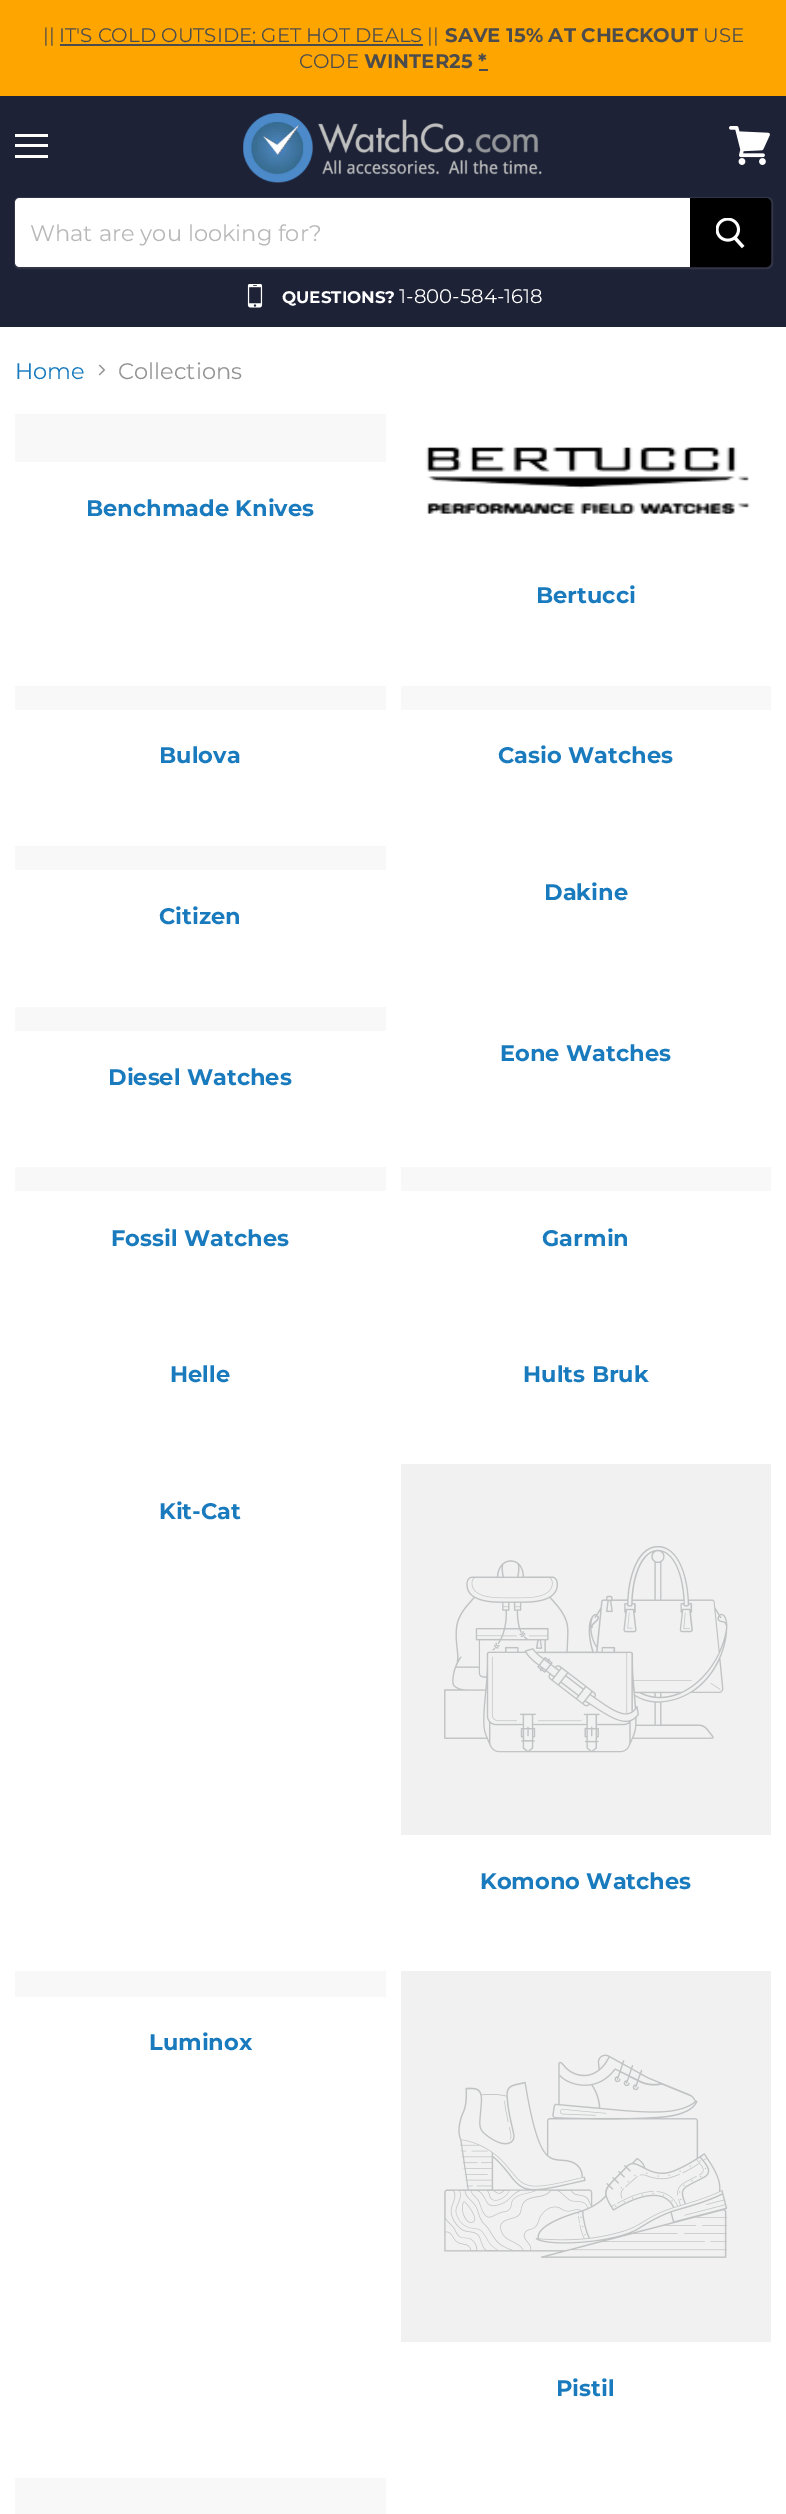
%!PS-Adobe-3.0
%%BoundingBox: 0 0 786 2514
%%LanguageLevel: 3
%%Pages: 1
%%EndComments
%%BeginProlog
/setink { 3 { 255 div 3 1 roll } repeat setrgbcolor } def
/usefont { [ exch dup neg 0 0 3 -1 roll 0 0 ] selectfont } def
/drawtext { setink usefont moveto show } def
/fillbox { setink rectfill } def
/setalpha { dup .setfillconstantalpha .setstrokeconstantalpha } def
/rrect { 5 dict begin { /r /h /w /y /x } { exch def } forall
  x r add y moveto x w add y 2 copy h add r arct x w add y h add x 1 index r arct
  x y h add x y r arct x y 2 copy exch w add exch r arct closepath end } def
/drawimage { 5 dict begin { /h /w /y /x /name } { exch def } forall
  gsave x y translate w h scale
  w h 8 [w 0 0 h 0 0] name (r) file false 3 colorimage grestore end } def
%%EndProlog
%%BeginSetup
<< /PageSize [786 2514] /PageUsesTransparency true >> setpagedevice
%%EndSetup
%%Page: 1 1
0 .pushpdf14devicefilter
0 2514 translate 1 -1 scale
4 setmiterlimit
0 0 786 2514 255 255 255 fillbox
0 0 786 96 255 165 0 fillbox
(||) 43 42 /Montserrat-Regular 19.7 76 76 76 drawtext
60 44 363 2 76 76 76 fillbox
(IT'S COLD OUTSIDE; GET HOT DEALS) 59 42 /Montserrat-Regular 19.7 76 76 76 drawtext
(||) 427 42 /Montserrat-Regular 19.7 76 76 76 drawtext
(SAVE 15% AT CHECKOUT) 445 42 /Montserrat-Bold 19.7 76 76 76 drawtext
(USE) 703 42 /Montserrat-Regular 19.7 76 76 76 drawtext
(CODE) 299 68 /Montserrat-Regular 19.7 76 76 76 drawtext
(WINTER25 *) 364 68 /Montserrat-Bold 19.7 76 76 76 drawtext
479 69 9 2 76 76 76 fillbox
0 96 786 231 29 34 54 fillbox
15 134 33 3 255 255 255 fillbox
15 144 33 3 255 255 255 fillbox
15 155 33 3 255 255 255 fillbox
(assets/img1.rgb) 729 126 41 39 drawimage
(assets/img2.rgb) 243 113 299 70 drawimage
0.2 setalpha
128 128 128 setink
2 setlinewidth
15 198 757 70 5 rrect stroke
1 setalpha
255 255 255 setink
20 198 moveto 690 198 lineto 690 267 lineto 20 267 lineto 17 267 15 265 15 262 curveto 15 203 lineto 15 200 17 198 20 198 curveto closepath fill
(What are you looking for?) 30 241 /Montserrat-Regular 22.5 184 184 184 drawtext
0 0 0 setink
691 199 moveto 766 199 lineto 768 199 770 201 770 203 curveto 770 262 lineto 770 264 768 266 766 266 curveto 691 266 lineto closepath gsave fill grestore
stroke
(assets/img3.rgb) 716 218 29 31 drawimage
(assets/img4.rgb) 247 284 16 24 drawimage
(QUESTIONS?) 282 303 /Montserrat-Bold 16.75 255 255 255 drawtext
(1-800-584-1618) 399 303 /Montserrat-Regular 19.7 255 255 255 drawtext
(Home) 15 379 /Montserrat-Regular 22.5 25 123 189 drawtext
(assets/img5.rgb) 98 364 7 12 drawimage
(Collections) 118 379 /Montserrat-Regular 22.5 148 148 148 drawtext
15 414 371 48 248 248 248 fillbox
(Benchmade Knives) 86 516 /Montserrat-Bold 22.5 25 123 189 drawtext
(assets/img6.rgb) 425 446 326 68 drawimage
(Bertucci) 536 603 /Montserrat-Bold 22.5 25 123 189 drawtext
15 686 371 24 248 248 248 fillbox
(Bulova) 159 763 /Montserrat-Bold 22.5 25 123 189 drawtext
401 686 370 24 248 248 248 fillbox
(Casio Watches) 498 763 /Montserrat-Bold 22.5 25 123 189 drawtext
(Dakine) 544 900 /Montserrat-Bold 22.5 25 123 189 drawtext
15 846 371 24 248 248 248 fillbox
(Citizen) 159 924 /Montserrat-Bold 22.5 25 123 189 drawtext
(Eone Watches) 500 1061 /Montserrat-Bold 22.5 25 123 189 drawtext
15 1007 371 24 248 248 248 fillbox
(Diesel Watches) 108 1085 /Montserrat-Bold 22.5 25 123 189 drawtext
15 1167 371 24 248 248 248 fillbox
(Fossil Watches) 111 1246 /Montserrat-Bold 22.5 25 123 189 drawtext
401 1167 370 24 248 248 248 fillbox
(Garmin) 542 1246 /Montserrat-Bold 22.5 25 123 189 drawtext
(Helle) 170 1382 /Montserrat-Bold 22.5 25 123 189 drawtext
(Hults Bruk) 523 1382 /Montserrat-Bold 22.5 25 123 189 drawtext
(Kit-Cat) 159 1519 /Montserrat-Bold 22.5 25 123 189 drawtext
401 1464 370 371 241 241 241 fillbox
(assets/img7.rgb) 444 1546 284 207 drawimage
(Komono Watches) 480 1889 /Montserrat-Bold 22.5 25 123 189 drawtext
15 1971 371 26 248 248 248 fillbox
(Luminox) 149 2050 /Montserrat-Bold 22.5 25 123 189 drawtext
401 1971 370 371 241 241 241 fillbox
(assets/img8.rgb) 444 2054 284 204 drawimage
(Pistil) 556 2396 /Montserrat-Bold 22.5 25 123 189 drawtext
15 2478 371 36 248 248 248 fillbox
.poppdf14devicefilter showpage
%%EOF
